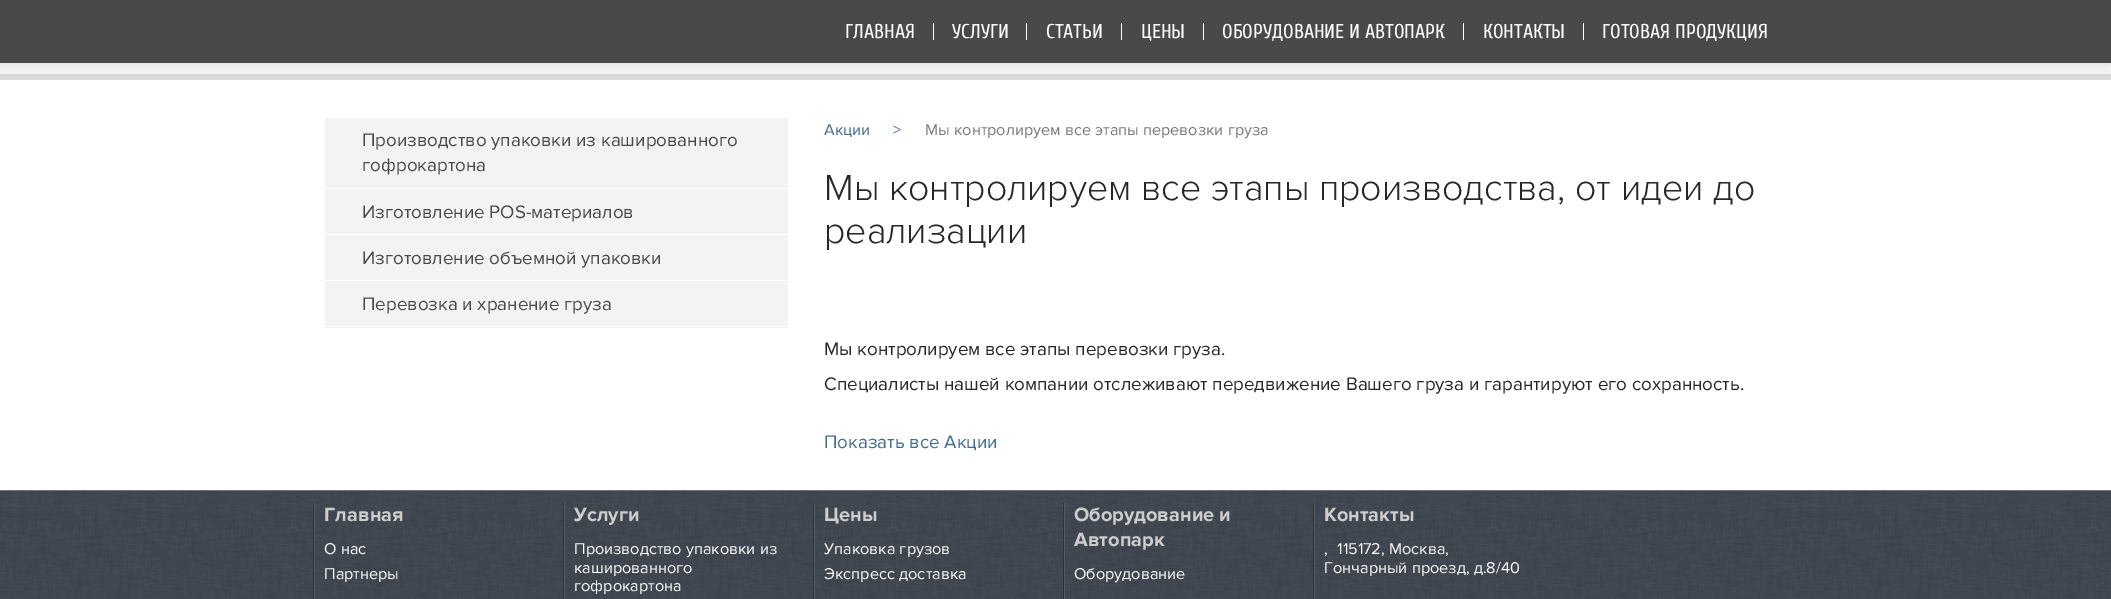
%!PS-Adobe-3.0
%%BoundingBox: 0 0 2111 599
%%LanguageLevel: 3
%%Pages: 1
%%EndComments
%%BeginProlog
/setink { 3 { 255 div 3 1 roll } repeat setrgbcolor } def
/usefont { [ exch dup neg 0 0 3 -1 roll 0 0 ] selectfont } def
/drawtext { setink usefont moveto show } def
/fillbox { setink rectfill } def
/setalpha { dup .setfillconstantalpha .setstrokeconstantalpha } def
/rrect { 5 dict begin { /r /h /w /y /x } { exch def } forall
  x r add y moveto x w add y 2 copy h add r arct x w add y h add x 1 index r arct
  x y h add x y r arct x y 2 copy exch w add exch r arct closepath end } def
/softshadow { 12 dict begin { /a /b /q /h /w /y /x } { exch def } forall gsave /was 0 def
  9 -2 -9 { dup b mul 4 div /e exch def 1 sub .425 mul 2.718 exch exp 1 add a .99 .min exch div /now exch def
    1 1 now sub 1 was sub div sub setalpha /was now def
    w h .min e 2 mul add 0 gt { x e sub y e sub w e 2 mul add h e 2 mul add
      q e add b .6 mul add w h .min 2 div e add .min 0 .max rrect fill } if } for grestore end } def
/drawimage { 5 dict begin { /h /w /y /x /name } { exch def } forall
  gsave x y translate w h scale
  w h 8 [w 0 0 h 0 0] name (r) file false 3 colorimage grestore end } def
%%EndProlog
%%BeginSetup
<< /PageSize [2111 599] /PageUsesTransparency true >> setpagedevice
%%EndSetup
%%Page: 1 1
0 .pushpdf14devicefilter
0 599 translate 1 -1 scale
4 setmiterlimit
0 0 2111 599 255 255 255 fillbox
0 63 2111 11 245 245 245 fillbox
0 74 2111 6 218 219 219 fillbox
0 0 0 setink
0 1 2111 63 0 6 0.1 softshadow
0 0 2111 63 72 73 74 fillbox
(ГЛАВНАЯ) 845 38 /Cuprum-Regular 20 252 252 254 drawtext
933 23 1 17 252 252 254 fillbox
(УСЛУГИ) 952 38 /Cuprum-Regular 20 252 252 254 drawtext
1026 23 1 17 252 252 254 fillbox
(СТАТЬИ) 1046 38 /Cuprum-Regular 20 252 252 254 drawtext
1121 23 1 17 252 252 254 fillbox
(ЦЕНЫ) 1141 38 /Cuprum-Regular 20 252 252 254 drawtext
1203 23 1 17 252 252 254 fillbox
(ОБОРУДОВАНИЕ И АВТОПАРК) 1222 38 /Cuprum-Regular 20 252 252 254 drawtext
1463 23 1 17 252 252 254 fillbox
(КОНТАКТЫ) 1483 38 /Cuprum-Regular 20 252 252 254 drawtext
1583 23 1 17 252 252 254 fillbox
(ГОТОВАЯ ПРОДУКЦИЯ) 1602 38 /Cuprum-Regular 20 252 252 254 drawtext
325 118 463 210 243 243 243 fillbox
325 188 463 1 255 255 255 fillbox
(Производство упаковки из кашированного) 362 146 /ProximaNova-Regular 18.75 72 73 74 drawtext
(гофрокартона) 362 171 /ProximaNova-Regular 18.75 72 73 74 drawtext
325 234 463 1 255 255 255 fillbox
(Изготовление POS-материалов) 362 218 /ProximaNova-Regular 18.75 72 73 74 drawtext
325 280 463 1 255 255 255 fillbox
(Изготовление объемной упаковки) 362 264 /ProximaNova-Regular 18.75 72 73 74 drawtext
325 326 463 1 255 255 255 fillbox
(Перевозка и хранение груза) 362 310 /ProximaNova-Regular 18.75 72 73 74 drawtext
(Акции) 824 135 /ProximaNova-Regular 16.25 64 108 142 drawtext
(>) 893 135 /ProximaNova-Regular 16.25 64 108 142 drawtext
(Мы контролируем все этапы перевозки груза) 925 135 /ProximaNova-Regular 16.25 120 121 124 drawtext
(Мы контролируем все этапы производства, от идеи до) 824 200 /ProximaNova-Light 37.5 39 39 39 drawtext
(реализации) 824 243 /ProximaNova-Light 37.5 39 39 39 drawtext
(Мы контролируем все этапы перевозки груза.) 824 355 /ProximaNova-Regular 18.75 39 39 39 drawtext
(Специалисты нашей компании отслеживают передвижение Вашего груза и гарантируют его сохранность.) 824 390 /ProximaNova-Regular 18.75 39 39 39 drawtext
(Показать все Акции) 824 448 /ProximaNova-Regular 18.75 64 108 142 drawtext
(assets/img1.rgb) 0 490 2111 109 drawimage
313 503 1 96 45 50 57 fillbox
314 503 1 96 85 92 103 fillbox
(Главная) 324 521 /ProximaNova-Bold 20 206 205 205 drawtext
(О нас) 324 554 /ProximaNova-Regular 16.25 252 252 254 drawtext
(Партнеры) 324 579 /ProximaNova-Regular 16.25 252 252 254 drawtext
563 503 1 96 45 50 57 fillbox
564 503 1 96 85 92 103 fillbox
(Услуги) 574 521 /ProximaNova-Bold 20 206 205 205 drawtext
(Производство упаковки из) 574 554 /ProximaNova-Regular 16.25 252 252 254 drawtext
(кашированного) 574 573 /ProximaNova-Regular 16.25 252 252 254 drawtext
(гофрокартона) 574 591 /ProximaNova-Regular 16.25 252 252 254 drawtext
813 503 1 96 45 50 57 fillbox
814 503 1 96 85 92 103 fillbox
(Цены) 824 521 /ProximaNova-Bold 20 206 205 205 drawtext
(Упаковка грузов) 824 554 /ProximaNova-Regular 16.25 252 252 254 drawtext
(Экспресс доставка) 824 579 /ProximaNova-Regular 16.25 252 252 254 drawtext
1063 503 1 96 45 50 57 fillbox
1064 503 1 96 85 92 103 fillbox
(Оборудование и) 1074 521 /ProximaNova-Bold 20 206 205 205 drawtext
(Автопарк) 1074 546 /ProximaNova-Bold 20 206 205 205 drawtext
(Оборудование) 1074 579 /ProximaNova-Regular 16.25 252 252 254 drawtext
1313 503 1 96 45 50 57 fillbox
1314 503 1 96 85 92 103 fillbox
(Контакты) 1324 521 /ProximaNova-Bold 20 206 205 205 drawtext
(,) 1324 554 /ProximaNova-Regular 16.25 252 252 254 drawtext
(115172, Москва,) 1337 554 /ProximaNova-Regular 16.25 252 252 254 drawtext
(Гончарный проезд, д.8/40) 1324 573 /ProximaNova-Regular 16.25 252 252 254 drawtext
.poppdf14devicefilter showpage
%%EOF
